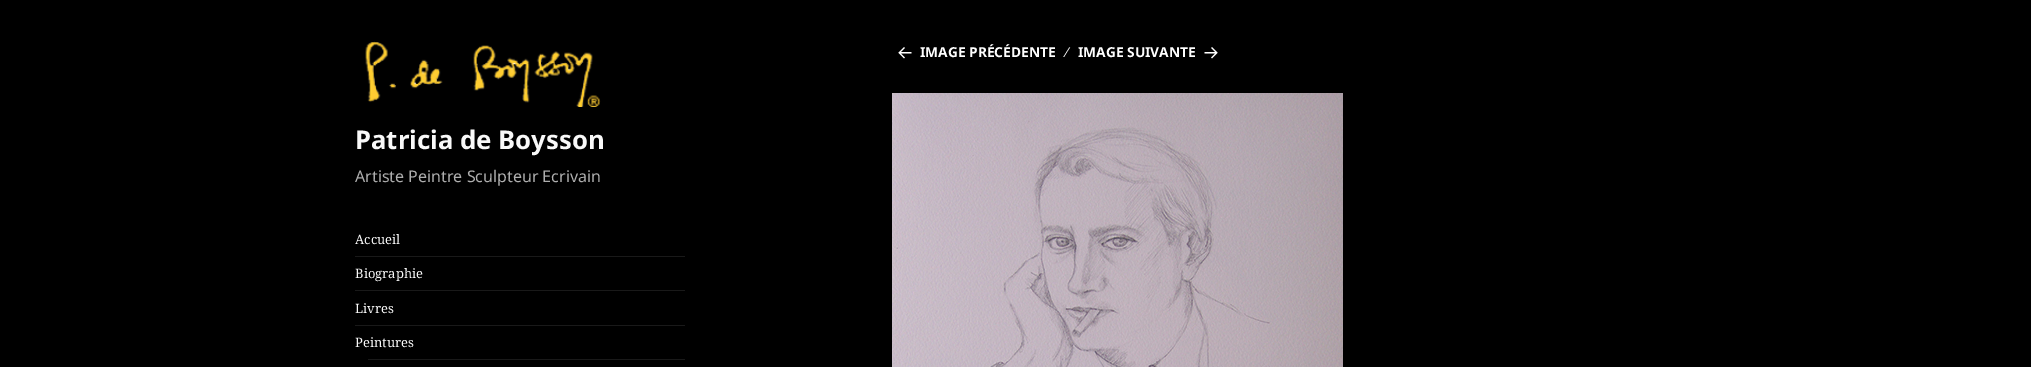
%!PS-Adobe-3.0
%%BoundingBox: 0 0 2031 367
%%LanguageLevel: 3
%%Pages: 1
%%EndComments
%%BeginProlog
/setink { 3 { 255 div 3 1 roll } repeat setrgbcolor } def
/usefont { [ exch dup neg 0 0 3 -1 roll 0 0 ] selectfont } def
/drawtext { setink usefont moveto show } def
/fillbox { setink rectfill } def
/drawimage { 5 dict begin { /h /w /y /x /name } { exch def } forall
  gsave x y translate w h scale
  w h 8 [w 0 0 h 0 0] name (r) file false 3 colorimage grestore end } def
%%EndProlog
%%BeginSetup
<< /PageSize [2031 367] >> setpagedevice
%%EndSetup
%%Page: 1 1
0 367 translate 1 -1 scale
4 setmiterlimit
0 0 2031 367 0 0 0 fillbox
(assets/img1.rgb) 898 47 14 12 drawimage
(IMAGE PRÉCÉDENTE) 920 57 /NotoSans-Bold 13.75 255 255 255 drawtext
(∕) 1066 57 /LiberationSans-Regular 14 255 255 255 drawtext
(IMAGE SUIVANTE) 1078 57 /NotoSans-Bold 13.75 255 255 255 drawtext
(assets/img2.rgb) 1204 47 14 12 drawimage
(assets/img3.rgb) 892 93 451 274 drawimage
(assets/img4.rgb) 365 41 236 66 drawimage
(Patricia de Boysson) 355 149 /NotoSans-Bold 25.75 249 249 249 drawtext
(Artiste Peintre Sculpteur Ecrivain) 355 182 /NotoSans-Regular 16 174 174 174 drawtext
(Accueil) 355 244 /NotoSerif-Regular 13 249 249 249 drawtext
355 256 330 1 25 25 25 fillbox
(Biographie) 355 278 /NotoSerif-Regular 13 249 249 249 drawtext
355 290 330 1 25 25 25 fillbox
(Livres) 355 313 /NotoSerif-Regular 13 249 249 249 drawtext
355 325 330 1 25 25 25 fillbox
(Peintures) 355 347 /NotoSerif-Regular 13 249 249 249 drawtext
368 359 317 1 25 25 25 fillbox
showpage
%%EOF
